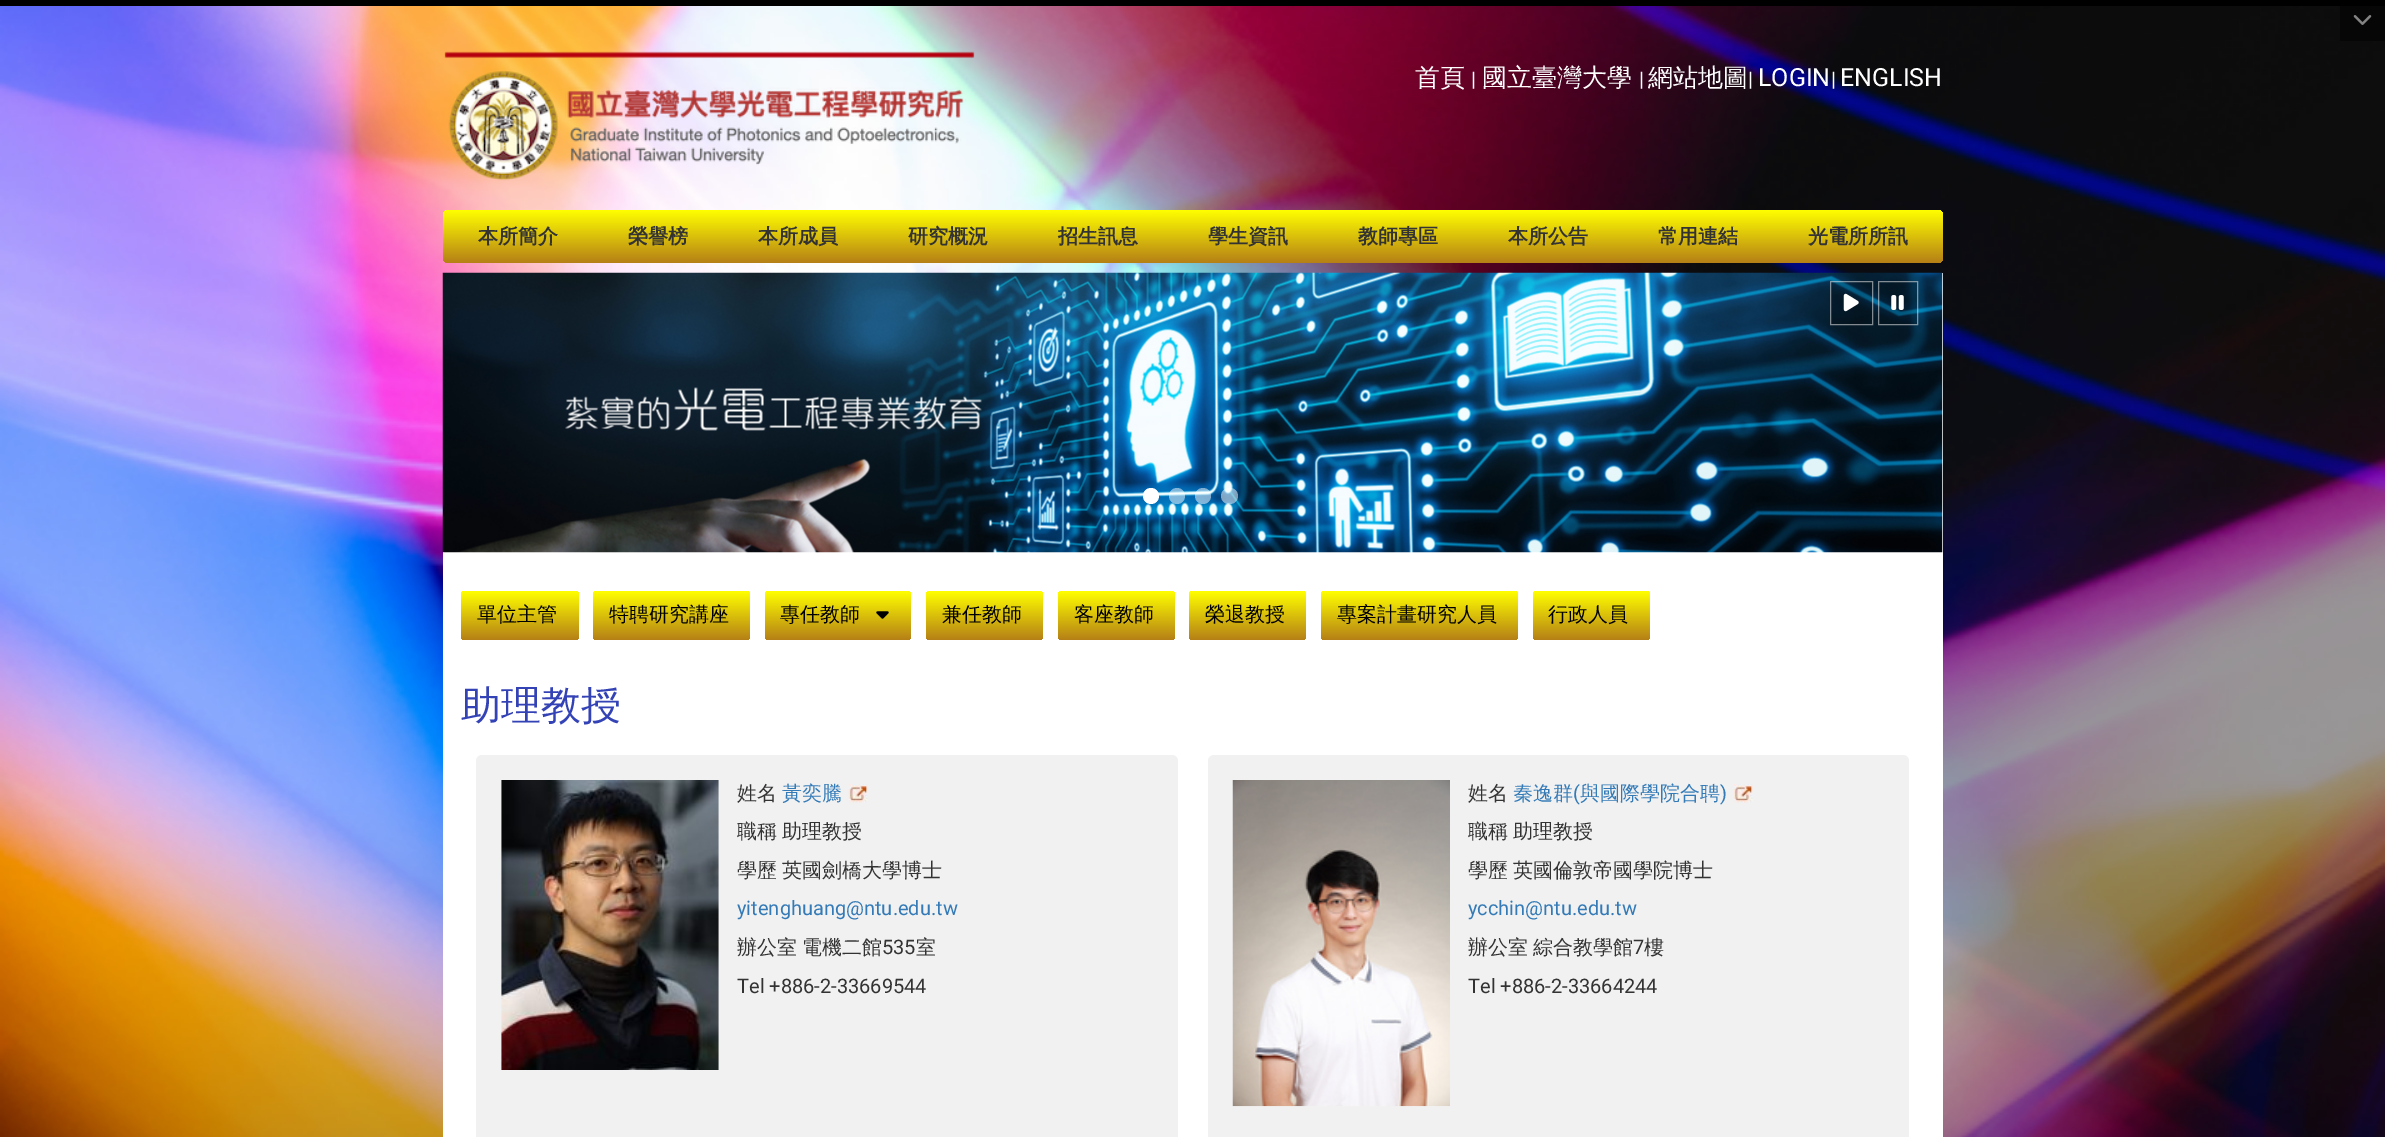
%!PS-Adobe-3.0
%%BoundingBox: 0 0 2385 1137
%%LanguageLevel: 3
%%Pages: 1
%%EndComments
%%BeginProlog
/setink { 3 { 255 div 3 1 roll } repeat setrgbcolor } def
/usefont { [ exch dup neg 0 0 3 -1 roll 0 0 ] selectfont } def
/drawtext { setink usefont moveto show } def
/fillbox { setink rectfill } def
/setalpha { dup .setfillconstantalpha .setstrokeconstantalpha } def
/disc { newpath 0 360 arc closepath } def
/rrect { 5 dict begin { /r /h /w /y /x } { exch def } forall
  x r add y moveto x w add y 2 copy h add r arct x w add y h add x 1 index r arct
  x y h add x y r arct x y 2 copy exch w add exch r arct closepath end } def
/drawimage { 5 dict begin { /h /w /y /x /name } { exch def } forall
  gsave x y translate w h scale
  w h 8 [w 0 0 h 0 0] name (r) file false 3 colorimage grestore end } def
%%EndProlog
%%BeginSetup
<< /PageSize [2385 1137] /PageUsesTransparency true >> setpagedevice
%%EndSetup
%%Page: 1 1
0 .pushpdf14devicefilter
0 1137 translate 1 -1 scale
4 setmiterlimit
0 0 2385 1137 255 255 255 fillbox
0 0 2385 6 0 0 0 fillbox
(assets/img1.rgb) 0 6 2385 1131 drawimage
0.5 setalpha
2340 6 45 35 0 0 0 fillbox
1 setalpha
(assets/img2.rgb) 2353 15 19 10 drawimage
(assets/img3.rgb) 444 51 531 130 drawimage
(首頁) 1415 86 /WenQuanYiZenHei-Medium 25 255 255 255 drawtext
(|) 1471 86 /Roboto-Regular 20 255 255 255 drawtext
(國立臺灣大學) 1482 86 /WenQuanYiZenHei-Medium 25 255 255 255 drawtext
(|) 1639 86 /Roboto-Regular 20 255 255 255 drawtext
(網站地圖) 1648 86 /WenQuanYiZenHei-Medium 25 255 255 255 drawtext
(|) 1748 86 /Roboto-Regular 20 255 255 255 drawtext
(LOGIN) 1758 86 /Roboto-Regular 25 255 255 255 drawtext
(|) 1831 86 /Roboto-Regular 20 255 255 255 drawtext
(ENGLISH) 1840 86 /Roboto-Regular 25 255 255 255 drawtext
gsave 443 210 1500 53 6 rrect clip newpath
<< /ShadingType 2 /ColorSpace /DeviceRGB /Coords [1193 210 1193 263] /Extend [true true] /Function << /FunctionType 2 /Domain [0 1] /C0 [1 1 0] /C1 [0.71 0.502 0.086] /N 1 >> >> shfill grestore
(本所簡介) 478 243 /WenQuanYiZenHei-Bold 20 51 51 51 drawtext
(榮譽榜) 628 243 /WenQuanYiZenHei-Bold 20 51 51 51 drawtext
(本所成員) 758 243 /WenQuanYiZenHei-Bold 20 51 51 51 drawtext
(研究概況) 908 243 /WenQuanYiZenHei-Bold 20 51 51 51 drawtext
(招生訊息) 1058 243 /WenQuanYiZenHei-Bold 20 51 51 51 drawtext
(學生資訊) 1208 243 /WenQuanYiZenHei-Bold 20 51 51 51 drawtext
(教師專區) 1358 243 /WenQuanYiZenHei-Bold 20 51 51 51 drawtext
(本所公告) 1508 243 /WenQuanYiZenHei-Bold 20 51 51 51 drawtext
(常用連結) 1658 243 /WenQuanYiZenHei-Bold 20 51 51 51 drawtext
(光電所所訊) 1808 243 /WenQuanYiZenHei-Bold 20 51 51 51 drawtext
443 273 1500 864 255 255 255 fillbox
(assets/img4.rgb) 442 272 1501 281 drawimage
0.2 setalpha
1830 281 43 44 0 0 0 fillbox
0.5 setalpha
255 255 255 setink
1830.5 281.5 42 43 rectstroke
1 setalpha
(assets/img5.rgb) 1843 293 16 19 drawimage
0.2 setalpha
1878 281 40 44 0 0 0 fillbox
0.5 setalpha
255 255 255 setink
1878.5 281.5 39 43 rectstroke
1 setalpha
(assets/img6.rgb) 1891 295 13 15 drawimage
1151 496 8 disc fill
0.5 setalpha
1177 496 8 disc fill
1203 496 8 disc fill
1221 488 17 16 8 rrect fill
1 setalpha
gsave 461 591 118 49 4 rrect clip newpath
<< /ShadingType 2 /ColorSpace /DeviceRGB /Coords [520 591 520 640] /Extend [true true] /Function << /FunctionType 2 /Domain [0 1] /C0 [1 1 0] /C1 [0.71 0.502 0.086] /N 1 >> >> shfill grestore
(單位主管) 477 621 /WenQuanYiZenHei-Medium 20 0 0 0 drawtext
gsave 593 591 157 49 4 rrect clip newpath
<< /ShadingType 2 /ColorSpace /DeviceRGB /Coords [671 591 671 640] /Extend [true true] /Function << /FunctionType 2 /Domain [0 1] /C0 [1 1 0] /C1 [0.71 0.502 0.086] /N 1 >> >> shfill grestore
(特聘研究講座) 609 621 /WenQuanYiZenHei-Medium 20 0 0 0 drawtext
gsave 765 591 146 49 4 rrect clip newpath
<< /ShadingType 2 /ColorSpace /DeviceRGB /Coords [838 591 838 640] /Extend [true true] /Function << /FunctionType 2 /Domain [0 1] /C0 [1 1 0] /C1 [0.71 0.502 0.086] /N 1 >> >> shfill grestore
(專任教師) 780 621 /WenQuanYiZenHei-Medium 20 0 0 0 drawtext
(assets/img7.rgb) 876 611 13 8 drawimage
gsave 926 591 117 49 4 rrect clip newpath
<< /ShadingType 2 /ColorSpace /DeviceRGB /Coords [984 591 984 640] /Extend [true true] /Function << /FunctionType 2 /Domain [0 1] /C0 [1 1 0] /C1 [0.71 0.502 0.086] /N 1 >> >> shfill grestore
(兼任教師) 942 621 /WenQuanYiZenHei-Medium 20 0 0 0 drawtext
gsave 1058 591 117 49 4 rrect clip newpath
<< /ShadingType 2 /ColorSpace /DeviceRGB /Coords [1116 591 1116 640] /Extend [true true] /Function << /FunctionType 2 /Domain [0 1] /C0 [1 1 0] /C1 [0.71 0.502 0.086] /N 1 >> >> shfill grestore
(客座教師) 1074 621 /WenQuanYiZenHei-Medium 20 0 0 0 drawtext
gsave 1189 591 117 49 4 rrect clip newpath
<< /ShadingType 2 /ColorSpace /DeviceRGB /Coords [1248 591 1248 640] /Extend [true true] /Function << /FunctionType 2 /Domain [0 1] /C0 [1 1 0] /C1 [0.71 0.502 0.086] /N 1 >> >> shfill grestore
(榮退教授) 1205 621 /WenQuanYiZenHei-Medium 20 0 0 0 drawtext
gsave 1321 591 197 49 4 rrect clip newpath
<< /ShadingType 2 /ColorSpace /DeviceRGB /Coords [1419 591 1419 640] /Extend [true true] /Function << /FunctionType 2 /Domain [0 1] /C0 [1 1 0] /C1 [0.71 0.502 0.086] /N 1 >> >> shfill grestore
(專案計畫研究人員) 1337 621 /WenQuanYiZenHei-Medium 20 0 0 0 drawtext
gsave 1533 591 117 49 4 rrect clip newpath
<< /ShadingType 2 /ColorSpace /DeviceRGB /Coords [1591 591 1591 640] /Extend [true true] /Function << /FunctionType 2 /Domain [0 1] /C0 [1 1 0] /C1 [0.71 0.502 0.086] /N 1 >> >> shfill grestore
(行政人員) 1548 621 /WenQuanYiZenHei-Medium 20 0 0 0 drawtext
(助理教授) 461 719 /WenQuanYiZenHei-Medium 40 51 66 181 drawtext
241 241 241 setink
476 755 702 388 6 rrect fill
(assets/img8.rgb) 501 780 218 290 drawimage
(姓名) 737 800 /WenQuanYiZenHei-Medium 20 51 51 51 drawtext
(黃奕騰) 782 800 /WenQuanYiZenHei-Medium 20 51 122 183 drawtext
(assets/img9.rgb) 848 784 20 19 drawimage
(職稱) 737 838 /WenQuanYiZenHei-Medium 20 51 51 51 drawtext
(助理教授) 782 838 /WenQuanYiZenHei-Medium 20 51 51 51 drawtext
(學歷) 737 877 /WenQuanYiZenHei-Medium 20 51 51 51 drawtext
(英國劍橋大學博士) 782 877 /WenQuanYiZenHei-Medium 20 51 51 51 drawtext
(yitenghuang@ntu.edu.tw) 737 915 /Roboto-Regular 20 51 122 183 drawtext
(辦公室) 737 954 /WenQuanYiZenHei-Medium 20 51 51 51 drawtext
(電機二館) 802 954 /WenQuanYiZenHei-Medium 20 51 51 51 drawtext
(535) 882 954 /Roboto-Regular 20 51 51 51 drawtext
(室) 916 954 /WenQuanYiZenHei-Medium 20 51 51 51 drawtext
(Tel +886-2-33669544) 737 993 /Roboto-Regular 20 51 51 51 drawtext
241 241 241 setink
1208 755 701 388 6 rrect fill
(assets/img10.rgb) 1232 780 218 327 drawimage
(姓名) 1468 800 /WenQuanYiZenHei-Medium 20 51 51 51 drawtext
(秦逸群) 1513 800 /WenQuanYiZenHei-Medium 20 51 122 183 drawtext
(\() 1573 800 /Roboto-Regular 20 51 122 183 drawtext
(與國際學院合聘) 1580 800 /WenQuanYiZenHei-Medium 20 51 122 183 drawtext
(\)) 1720 800 /Roboto-Regular 20 51 122 183 drawtext
(assets/img11.rgb) 1733 784 20 19 drawimage
(職稱) 1468 838 /WenQuanYiZenHei-Medium 20 51 51 51 drawtext
(助理教授) 1513 838 /WenQuanYiZenHei-Medium 20 51 51 51 drawtext
(學歷) 1468 877 /WenQuanYiZenHei-Medium 20 51 51 51 drawtext
(英國倫敦帝國學院博士) 1513 877 /WenQuanYiZenHei-Medium 20 51 51 51 drawtext
(ycchin@ntu.edu.tw) 1468 915 /Roboto-Regular 20 51 122 183 drawtext
(辦公室) 1468 954 /WenQuanYiZenHei-Medium 20 51 51 51 drawtext
(綜合教學館) 1533 954 /WenQuanYiZenHei-Medium 20 51 51 51 drawtext
(7) 1633 954 /Roboto-Regular 20 51 51 51 drawtext
(樓) 1644 954 /WenQuanYiZenHei-Medium 20 51 51 51 drawtext
(Tel +886-2-33664244) 1468 993 /Roboto-Regular 20 51 51 51 drawtext
.poppdf14devicefilter showpage
%%EOF
